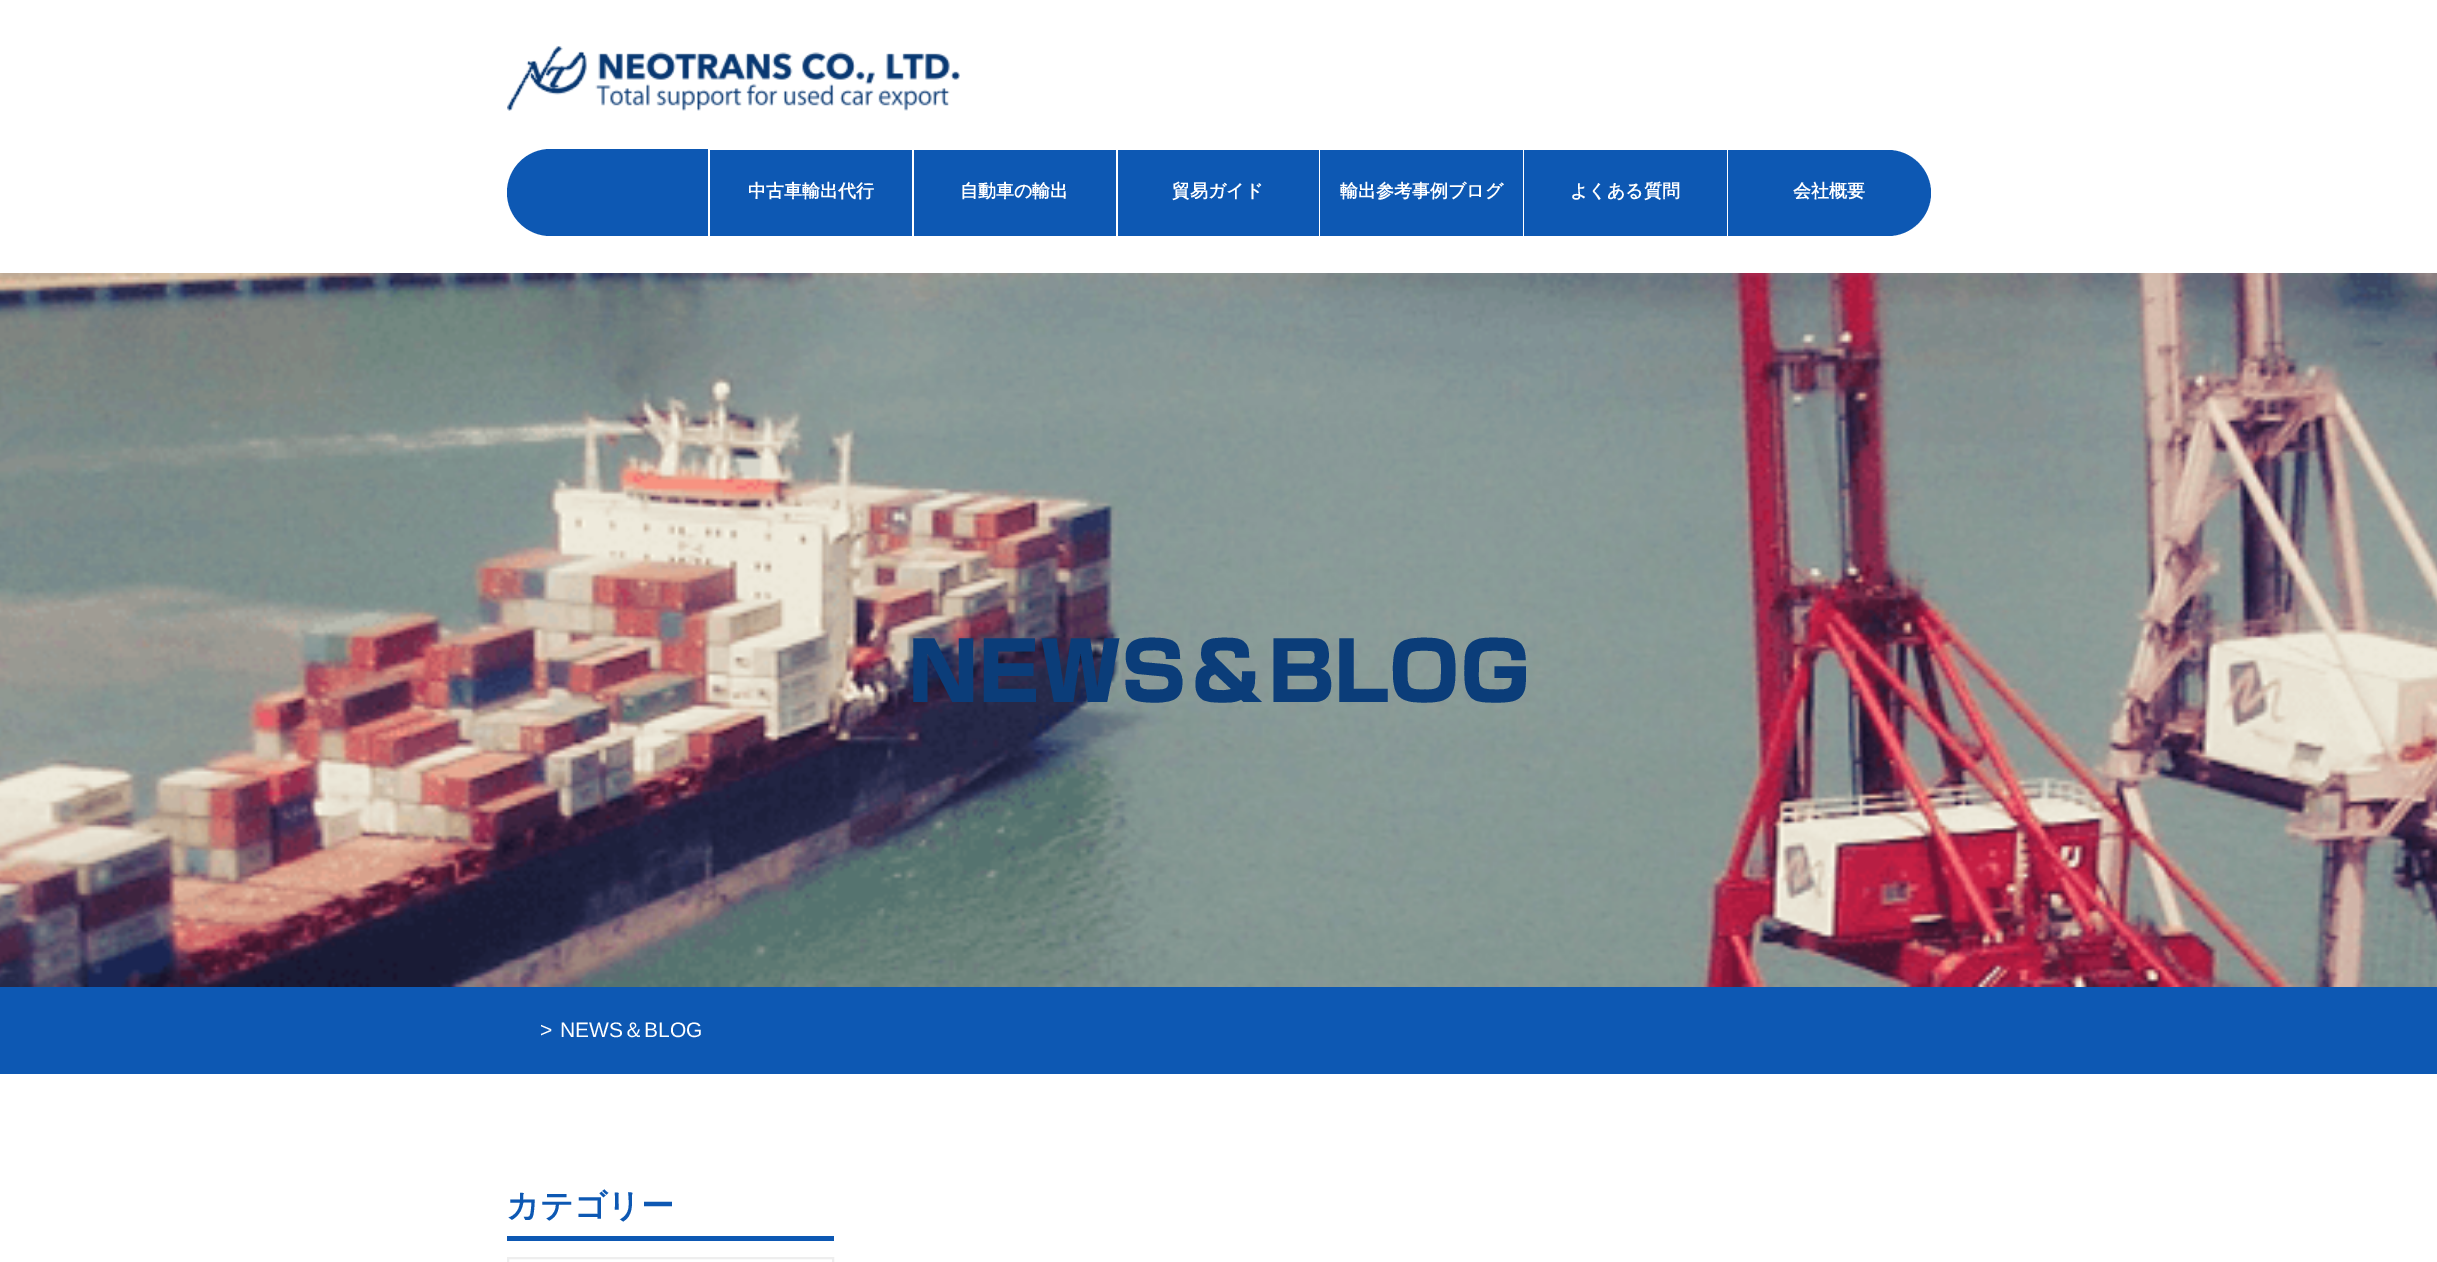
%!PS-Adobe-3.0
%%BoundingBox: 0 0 2437 1262
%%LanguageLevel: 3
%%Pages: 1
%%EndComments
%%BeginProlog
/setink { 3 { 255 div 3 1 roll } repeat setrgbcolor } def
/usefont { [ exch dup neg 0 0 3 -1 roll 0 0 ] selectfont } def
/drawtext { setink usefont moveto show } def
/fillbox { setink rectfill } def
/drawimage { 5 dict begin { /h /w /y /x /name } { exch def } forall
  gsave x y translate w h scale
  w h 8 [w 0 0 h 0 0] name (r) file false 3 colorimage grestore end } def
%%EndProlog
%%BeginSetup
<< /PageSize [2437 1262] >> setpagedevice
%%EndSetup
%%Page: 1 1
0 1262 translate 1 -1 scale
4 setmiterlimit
0 0 2437 1262 255 255 255 fillbox
(assets/img1.rgb) 507 46 453 65 drawimage
13 88 179 setink
550.5 149 moveto 708 149 lineto 708 236 lineto 550.5 236 lineto 526.5 236 507 216.5 507 192.5 curveto 507 168.5 526.5 149 550.5 149 curveto closepath fill
710 150 202 86 13 88 179 fillbox
(中古車輸出代行) 748 197 /WenQuanYiZenHei-Bold 18 255 255 255 drawtext
914 150 202 86 13 88 179 fillbox
(自動車の輸出) 960 197 /WenQuanYiZenHei-Bold 18 255 255 255 drawtext
1118 150 201 86 13 88 179 fillbox
(貿易ガイド) 1172 197 /WenQuanYiZenHei-Bold 18 255 255 255 drawtext
1320 150 203 86 13 88 179 fillbox
(輸出参考事例ブログ) 1340 197 /WenQuanYiZenHei-Bold 18 255 255 255 drawtext
1524 150 203 86 13 88 179 fillbox
(よくある質問) 1570 197 /WenQuanYiZenHei-Bold 18 255 255 255 drawtext
13 88 179 setink
1728 150 moveto 1888 150 lineto 1911.5 150 1931 169.5 1931 193 curveto 1931 216.5 1911.5 236 1888 236 curveto 1728 236 lineto closepath fill
(会社概要) 1793 197 /WenQuanYiZenHei-Bold 18 255 255 255 drawtext
(assets/img2.rgb) 0 273 2437 714 drawimage
(NEWS＆BLOG) 908 702 /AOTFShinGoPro-Black 81 11 61 121 drawtext
0 987 2437 87 13 88 179 fillbox
(>) 540 1037 /LiberationSans-Regular 21 255 255 255 drawtext
(NEWS) 560 1037 /LiberationSans-Regular 21 255 255 255 drawtext
(＆) 623 1037 /WenQuanYiZenHei-Medium 21 255 255 255 drawtext
(BLOG) 644 1037 /LiberationSans-Regular 21 255 255 255 drawtext
507 1236 327 5 13 88 179 fillbox
(カテゴリー) 506 1217 /WenQuanYiZenHei-Bold 33 13 88 179 drawtext
238 238 238 setink
2 setlinewidth
508 1258 325 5 rectstroke
showpage
%%EOF
